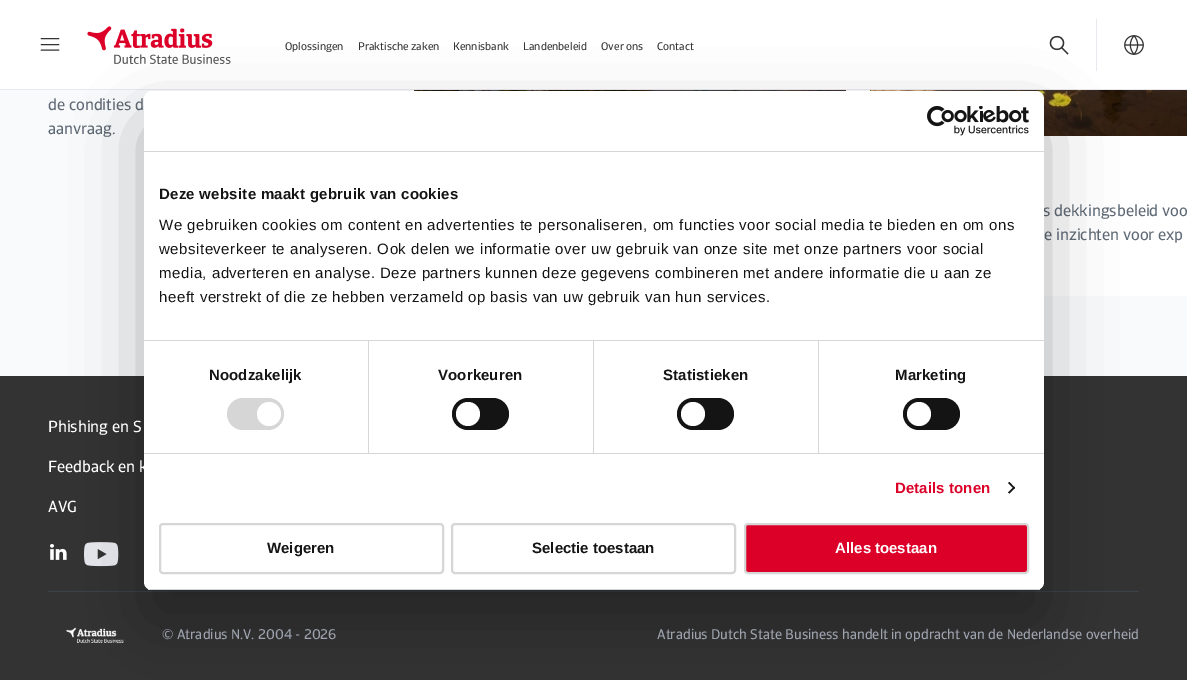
%!PS-Adobe-3.0
%%BoundingBox: 0 0 1187 680
%%LanguageLevel: 3
%%Pages: 1
%%EndComments
%%BeginProlog
/setink { 3 { 255 div 3 1 roll } repeat setrgbcolor } def
/usefont { [ exch dup neg 0 0 3 -1 roll 0 0 ] selectfont } def
/drawtext { setink usefont moveto show } def
/fillbox { setink rectfill } def
/setalpha { dup .setfillconstantalpha .setstrokeconstantalpha } def
/disc { newpath 0 360 arc closepath } def
/rrect { 5 dict begin { /r /h /w /y /x } { exch def } forall
  x r add y moveto x w add y 2 copy h add r arct x w add y h add x 1 index r arct
  x y h add x y r arct x y 2 copy exch w add exch r arct closepath end } def
/softshadow { 12 dict begin { /a /b /q /h /w /y /x } { exch def } forall gsave /was 0 def
  9 -2 -9 { dup b mul 4 div /e exch def 1 sub .425 mul 2.718 exch exp 1 add a .99 .min exch div /now exch def
    1 1 now sub 1 was sub div sub setalpha /was now def
    w h .min e 2 mul add 0 gt { x e sub y e sub w e 2 mul add h e 2 mul add
      q e add b .6 mul add w h .min 2 div e add .min 0 .max rrect fill } if } for grestore end } def
/drawimage { 5 dict begin { /h /w /y /x /name } { exch def } forall
  gsave x y translate w h scale
  w h 8 [w 0 0 h 0 0] name (r) file false 3 colorimage grestore end } def
%%EndProlog
%%BeginSetup
<< /PageSize [1187 680] /PageUsesTransparency true >> setpagedevice
%%EndSetup
%%Page: 1 1
0 .pushpdf14devicefilter
0 680 translate 1 -1 scale
4 setmiterlimit
0 0 1187 680 51 51 51 fillbox
0 0 1187 89 255 255 255 fillbox
0 89 1187 1 231 233 238 fillbox
gsave
40 38 20 13 rectclip
51 51 51 setink
1.1 setlinewidth
2 setlinecap
1 setlinejoin
41.5 44.5 moveto 58.5 44.5 lineto 41.5 38.5 moveto 58.5 38.5 lineto 41.5 50 moveto 58.5 50 lineto stroke
grestore
(assets/img1.rgb) 87 26 144 38 drawimage
(Oplossingen) 285 50 /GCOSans-Regular 11 51 51 51 drawtext
(Praktische zaken) 358 50 /GCOSans-Regular 11 51 51 51 drawtext
(Kennisbank) 453 50 /GCOSans-Regular 11 51 51 51 drawtext
(Landenbeleid) 523 50 /GCOSans-Regular 11 51 51 51 drawtext
(Over ons) 601 50 /GCOSans-Regular 11 51 51 51 drawtext
(Contact) 657 50 /GCOSans-Regular 11 51 51 51 drawtext
1.3 setlinewidth
2 setlinecap
1067.5 53.5 moveto 1062 48 lineto 1063.5 43 moveto 1063.5 51.5 1050.5 51.5 1050.5 43 curveto 1050.5 34.5 1063.5 34.5 1063.5 43 curveto closepath stroke
1096 19 1 52 231 233 238 fillbox
(assets/img2.rgb) 1124 35 20 20 drawimage
0 90 1187 286 249 250 251 fillbox
(de condities d) 48 110 /GCOSans-Regular 16 96 106 118 drawtext
(aanvraag.) 48 134 /GCOSans-Regular 16 96 106 118 drawtext
(assets/img3.rgb) 414 90 432 1 drawimage
1044 136 143 160 255 255 255 fillbox
(assets/img4.rgb) 870 90 317 46 drawimage
(s dekkingsbeleid voo) 1043 216 /GCOSans-Regular 16 96 106 118 drawtext
(e inzichten voor exp) 1044 240 /GCOSans-Regular 16 96 106 118 drawtext
(assets/img6.rgb) 50 544 17 16 drawimage
(assets/img7.rgb) 84 542 35 25 drawimage
48 591 1091 1 60 66 76 fillbox
(assets/img8.rgb) 66 627 58 16 drawimage
0 0 0 setink
144 123 900 499 8 34 0.3 softshadow
255 255 255 setink
144 91 900 499 8 rrect fill
144 151 900 1 214 214 214 fillbox
(assets/img5.rgb) 927 106 102 30 drawimage
144 340 900 1 214 214 214 fillbox
/LiberationSans-Bold 15 usefont
20 20 20 setink
159 199 moveto 0.25 0 (Deze website maakt gebruik van cookies) ashow
/LiberationSans-Regular 15 usefont
159 230 moveto 0.5 0 (We gebruiken cookies om content en advertenties te personaliseren, om functies voor social media te bieden en om ons) ashow
159 254 moveto 0.5 0 (websiteverkeer te analyseren. Ook delen we informatie over uw gebruik van onze site met onze partners voor social) ashow
159 278 moveto 0.5 0 (media, adverteren en analyse. Deze partners kunnen deze gegevens combineren met andere informatie die u aan ze) ashow
159 302 moveto 0.5 0 (heeft verstrekt of die ze hebben verzameld op basis van uw gebruik van hun services.) ashow
144 453 900 1 214 214 214 fillbox
368 341 1 112 214 214 214 fillbox
/LiberationSans-Bold 15 usefont
20 20 20 setink
209 380 moveto 0.1 0 (Noodzakelijk) ashow
214 214 214 setink
227 398 57 32 16 rrect fill
255 255 255 setink
269 414 12 disc fill
593 341 1 112 214 214 214 fillbox
20 20 20 setink
438 380 moveto 0.1 0 (Voorkeuren) ashow
452 398 57 32 16 rrect fill
255 255 255 setink
468 414 12 disc fill
818 341 1 112 214 214 214 fillbox
20 20 20 setink
663 380 moveto 0.1 0 (Statistieken) ashow
677 398 57 32 16 rrect fill
255 255 255 setink
693 414 12 disc fill
20 20 20 setink
895 380 moveto 0.1 0 (Marketing) ashow
903 398 57 32 16 rrect fill
255 255 255 setink
919 414 12 disc fill
220 0 40 setink
895 493 moveto 0.1 0 (Details tonen) ashow
20 20 20 setink
1009.5 482 moveto 1015 488 lineto 1014 489 lineto 1008 483 lineto closepath fill
1014 486.5 moveto 1015 488 lineto 1009.5 493.5 lineto 1008 492.5 lineto closepath fill
gsave
144 91 900 499 8 rrect clip newpath
144 589 900 1 214 214 214 fillbox
grestore
214 214 214 setink
2 setlinewidth
0 setlinecap
160 524 283 49 3 rrect stroke
(Weigeren) 267 553 /LiberationSans-Bold 15 20 20 20 drawtext
214 214 214 setink
452 524 283 49 3 rrect stroke
(Selectie toestaan) 532 553 /LiberationSans-Bold 15 20 20 20 drawtext
220 0 40 setink
745 524 283 49 3 rrect gsave fill grestore
214 214 214 setink
stroke
(Alles toestaan) 835 553 /LiberationSans-Bold 15 255 255 255 drawtext
(Phishing en S) 48 432 /GCOSans-Regular 16 255 255 255 drawtext
(Feedback en k) 48 472 /GCOSans-Regular 16 255 255 255 drawtext
(AVG) 48 512 /GCOSans-Regular 16 255 255 255 drawtext
(© Atradius N.V. 2004 - 2026) 162 639 /GCOSans-Regular 14 157 163 174 drawtext
(Atradius Dutch State Business handelt in opdracht van de Nederlandse overheid) 657 639 /GCOSans-Regular 14 157 163 174 drawtext
.poppdf14devicefilter showpage
%%EOF
